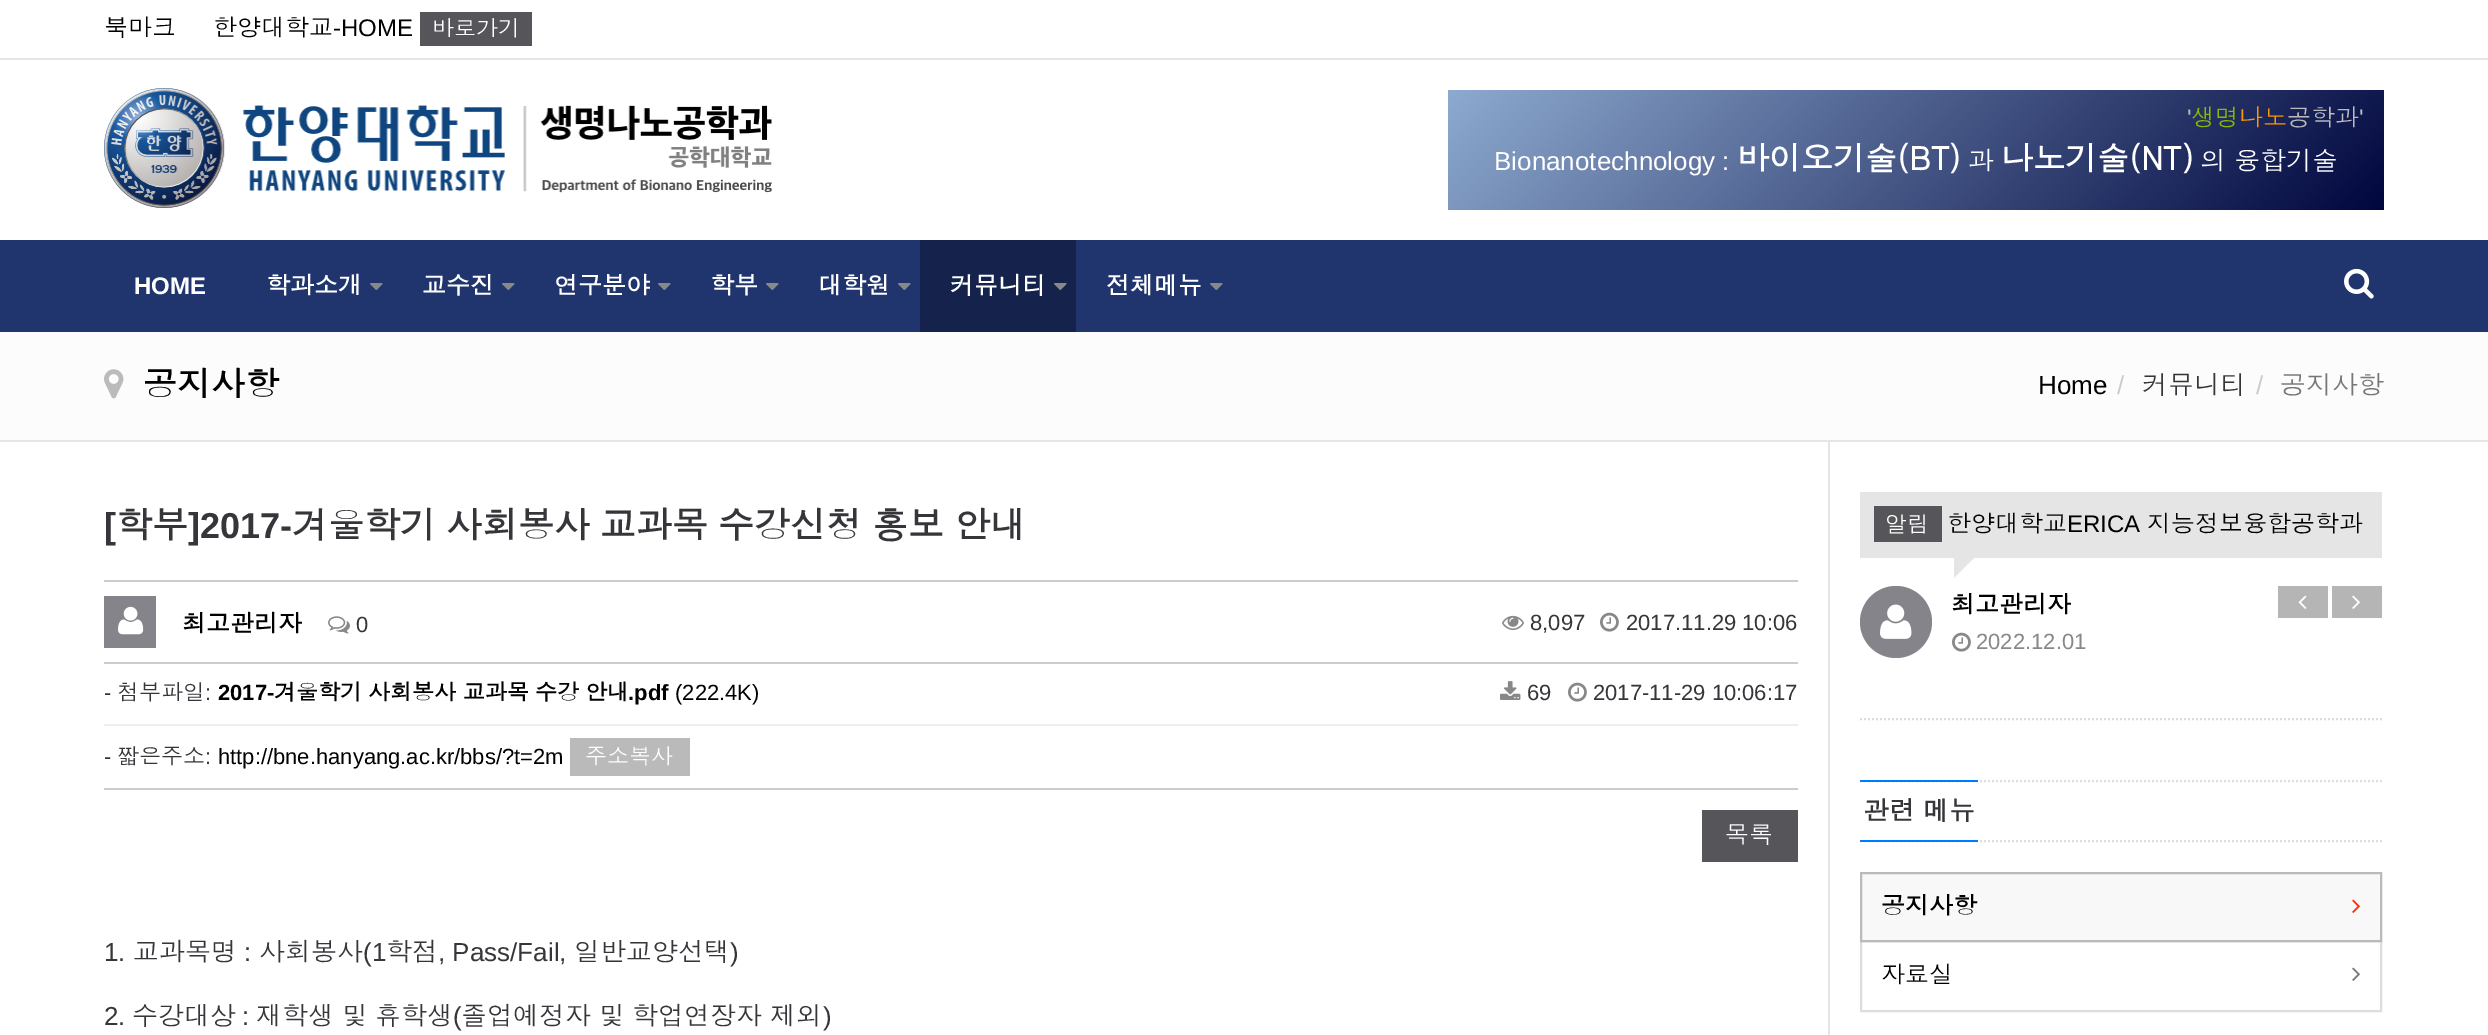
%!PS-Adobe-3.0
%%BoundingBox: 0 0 2488 1035
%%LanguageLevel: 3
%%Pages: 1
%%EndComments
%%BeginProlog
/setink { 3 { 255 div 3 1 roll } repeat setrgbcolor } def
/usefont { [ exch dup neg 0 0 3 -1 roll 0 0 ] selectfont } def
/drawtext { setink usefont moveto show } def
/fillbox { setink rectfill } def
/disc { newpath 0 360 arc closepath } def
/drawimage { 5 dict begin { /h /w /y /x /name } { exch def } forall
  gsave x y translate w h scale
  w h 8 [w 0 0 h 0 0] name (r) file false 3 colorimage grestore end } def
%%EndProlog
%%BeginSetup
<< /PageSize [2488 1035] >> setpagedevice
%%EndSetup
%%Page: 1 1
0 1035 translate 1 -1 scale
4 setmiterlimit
0 0 2488 1035 255 255 255 fillbox
0 58 2488 2 229 229 229 fillbox
(북마크) 104 36 /Dotum-Regular 24 0 0 0 drawtext
(한양대학교) 213 36 /Dotum-Regular 24 0 0 0 drawtext
(-HOME) 333 36 /LiberationSans-Regular 24 0 0 0 drawtext
420 12 112 34 85 85 90 fillbox
(바로가기) 432 36 /Dotum-Regular 22 255 255 255 drawtext
(assets/img1.rgb) 104 88 668 120 drawimage
gsave 1448 90 moveto 2384 90 lineto 2384 210 lineto 1448 210 lineto closepath clip newpath
<< /ShadingType 2 /ColorSpace /DeviceRGB /Coords [1652 -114 2180 414] /Extend [true true] /Function << /FunctionType 2 /Domain [0 1] /C0 [0.553 0.667 0.812] /C1 [0 0.024 0.243] /N 1 >> >> shfill grestore
(') 2187 126 /LiberationSans-Regular 24 187 187 187 drawtext
(생명) 2191 126 /Dotum-Regular 24 136 186 0 drawtext
(나노) 2239 126 /Dotum-Regular 24 255 149 0 drawtext
(공학과) 2287 126 /Dotum-Regular 24 187 187 187 drawtext
(') 2359 126 /LiberationSans-Regular 24 187 187 187 drawtext
(Bionanotechnology :) 1494 170 /LiberationSans-Regular 26 255 255 255 drawtext
(바이오기술\(BT\)) 1737 170 /Dotum-Bold 32 255 255 255 drawtext
(과) 1968 170 /Dotum-Regular 26 255 255 255 drawtext
(나노기술\(NT\)) 2001 170 /Dotum-Bold 32 255 255 255 drawtext
/Dotum-Regular 26 usefont
2200 170 moveto -1 0 32 (의 융합기술) widthshow
0 240 2488 92 32 52 110 fillbox
(HOME) 134 294 /LiberationSans-Bold 24 255 255 255 drawtext
(학과소개) 266 294 /Dotum-Bold 24 255 255 255 drawtext
(assets/img2.rgb) 370 283 13 7 drawimage
(교수진) 422 294 /Dotum-Bold 24 255 255 255 drawtext
(assets/img2.rgb) 502 283 13 7 drawimage
(연구분야) 554 294 /Dotum-Bold 24 255 255 255 drawtext
(assets/img2.rgb) 658 283 13 7 drawimage
(학부) 710 294 /Dotum-Bold 24 255 255 255 drawtext
(assets/img2.rgb) 766 283 13 7 drawimage
(대학원) 818 294 /Dotum-Bold 24 255 255 255 drawtext
(assets/img2.rgb) 898 283 13 7 drawimage
920 240 156 92 21 35 76 fillbox
(커뮤니티) 950 294 /Dotum-Bold 24 255 255 255 drawtext
(assets/img3.rgb) 1054 283 13 7 drawimage
(전체메뉴) 1106 294 /Dotum-Bold 24 255 255 255 drawtext
(assets/img2.rgb) 1210 283 13 7 drawimage
(assets/img4.rgb) 2344 268 30 31 drawimage
0 332 2488 108 252 252 252 fillbox
0 440 2488 2 229 229 229 fillbox
(assets/img5.rgb) 104 369 20 30 drawimage
(공지사항) 143 396 /Dotum-Bold 34 0 0 0 drawtext
(Home) 2038 394 /LiberationSans-Regular 26 0 0 0 drawtext
(/) 2117 394 /LiberationSans-Regular 26 204 204 204 drawtext
(커뮤니티) 2142 394 /Dotum-Regular 26 53 53 58 drawtext
(/) 2256 394 /LiberationSans-Regular 26 204 204 204 drawtext
(공지사항) 2280 394 /Dotum-Regular 26 119 119 119 drawtext
1828 442 2 593 229 229 229 fillbox
([) 104 538 /LiberationSans-Bold 36 53 53 58 drawtext
(학부) 116 538 /Dotum-Bold 36 53 53 58 drawtext
(]2017-) 188 538 /LiberationSans-Bold 36 53 53 58 drawtext
/Dotum-Bold 36 usefont
292 538 moveto -2 0 32 (겨울학기 사회봉사 교과목 수강신청 홍보 안내) widthshow
104 580 1694 2 204 204 204 fillbox
104 662 1694 2 204 204 204 fillbox
104 596 52 52 132 132 138 fillbox
(assets/img6.rgb) 118 606 26 29 drawimage
(최고관리자) 182 632 /Dotum-Bold 24 0 0 0 drawtext
(assets/img7.rgb) 328 616 22 18 drawimage
(0) 356 632 /LiberationSans-Regular 22 53 53 58 drawtext
(assets/img8.rgb) 1502 615 22 15 drawimage
(8,097) 1530 630 /LiberationSans-Regular 22 53 53 58 drawtext
(assets/img9.rgb) 1600 612 19 20 drawimage
(2017.11.29 10:06) 1626 630 /LiberationSans-Regular 22 53 53 58 drawtext
104 724 1694 2 238 238 238 fillbox
(-) 104 700 /LiberationSans-Regular 22 53 53 58 drawtext
(첨부파일) 117 700 /Dotum-Regular 22 53 53 58 drawtext
(:) 205 700 /LiberationSans-Regular 22 53 53 58 drawtext
(2017-) 218 700 /LiberationSans-Bold 22 0 0 0 drawtext
/Dotum-Bold 22 usefont
274 700 moveto -1 0 32 (겨울학기 사회봉사 교과목 수강 안내) widthshow
(.pdf) 628 700 /LiberationSans-Bold 22 0 0 0 drawtext
(\(222.4K\)) 675 700 /LiberationSans-Regular 22 0 0 0 drawtext
(assets/img10.rgb) 1500 681 21 19 drawimage
(69) 1527 700 /LiberationSans-Regular 22 53 53 58 drawtext
(assets/img9.rgb) 1568 682 19 20 drawimage
(2017-11-29 10:06:17) 1593 700 /LiberationSans-Regular 22 53 53 58 drawtext
104 788 1694 2 204 204 204 fillbox
(-) 104 764 /LiberationSans-Regular 22 53 53 58 drawtext
(짧은주소) 117 764 /Dotum-Regular 22 53 53 58 drawtext
(:) 205 764 /LiberationSans-Regular 22 53 53 58 drawtext
(http://bne.hanyang.ac.kr/bbs/?t=2m) 218 764 /LiberationSans-Regular 22 0 0 0 drawtext
570 738 120 38 186 186 187 fillbox
(주소복사) 585 764 /Dotum-Regular 22 255 255 255 drawtext
1702 810 96 52 85 85 90 fillbox
(목록) 1725 843 /Dotum-Regular 24 255 255 255 drawtext
(1.) 104 961 /LiberationSans-Regular 26 53 53 58 drawtext
(교과목명) 133 961 /Dotum-Regular 26 53 53 58 drawtext
(:) 244 961 /LiberationSans-Regular 26 53 53 58 drawtext
(사회봉사) 259 961 /Dotum-Regular 26 53 53 58 drawtext
(\(1) 363 961 /LiberationSans-Regular 26 53 53 58 drawtext
(학점) 386 961 /Dotum-Regular 26 53 53 58 drawtext
(, Pass/Fail,) 438 961 /LiberationSans-Regular 26 53 53 58 drawtext
(일반교양선택) 574 961 /Dotum-Regular 26 53 53 58 drawtext
(\)) 730 961 /LiberationSans-Regular 26 53 53 58 drawtext
(2.) 104 1025 /LiberationSans-Regular 26 53 53 58 drawtext
(수강대상) 132 1025 /Dotum-Regular 26 53 53 58 drawtext
256 1025 moveto -1 0 32 (재학생 및 휴학생 졸업예정자 및 학업연장자 제외) widthshow
(:) 242 1025 /LiberationSans-Regular 26 53 53 58 drawtext
(\() 453 1025 /LiberationSans-Regular 26 53 53 58 drawtext
(\)) 823 1025 /LiberationSans-Regular 26 53 53 58 drawtext
1860 492 522 66 229 229 229 fillbox
1874 506 68 36 85 85 90 fillbox
(알림) 1885 532 /Dotum-Regular 22 255 255 255 drawtext
(한양대학교) 1947 532 /Dotum-Regular 24 0 0 0 drawtext
(ERICA) 2067 532 /LiberationSans-Regular 24 0 0 0 drawtext
(지능정보융합공학과) 2147 532 /Dotum-Regular 24 0 0 0 drawtext
229 229 229 setink
1954 558 moveto 1974 558 lineto 1954 578 lineto closepath fill
132 132 138 setink
1896 622 36 disc fill
(assets/img11.rgb) 1880 604 32 35 drawimage
(최고관리자) 1951 613 /Dotum-Bold 24 0 0 0 drawtext
(assets/img9.rgb) 1952 632 19 20 drawimage
(2022.12.01) 1976 649 /LiberationSans-Regular 22 136 136 136 drawtext
2278 586 50 32 181 181 181 fillbox
(assets/img12.rgb) 2298 595 9 14 drawimage
2332 586 50 32 181 181 181 fillbox
(assets/img13.rgb) 2352 595 8 14 drawimage
221 221 221 setink
2 setlinewidth
[2 2] 0 setdash
1860 719 moveto 2382 719 lineto stroke
1860 781 moveto 2382 781 lineto stroke
1860 841 moveto 2382 841 lineto stroke
1860 780 118 2 0 122 255 fillbox
1860 840 118 2 0 122 255 fillbox
/Dotum-Bold 26 usefont
53 53 58 setink
1863 820 moveto -1 0 32 (관련 메뉴) widthshow
221 221 221 setink
[] 0 setdash
1861 941 520 70 rectstroke
248 248 248 setink
1861 873 moveto 2381 873 lineto 2381 941 lineto 1861 941 lineto closepath gsave fill grestore
186 186 187 setink
stroke
(공지사항) 1881 914 /Dotum-Bold 24 0 0 0 drawtext
(assets/img14.rgb) 2352 899 8 14 drawimage
(자료실) 1881 983 /Dotum-Regular 24 0 0 0 drawtext
(assets/img15.rgb) 2352 967 8 14 drawimage
showpage
%%EOF
